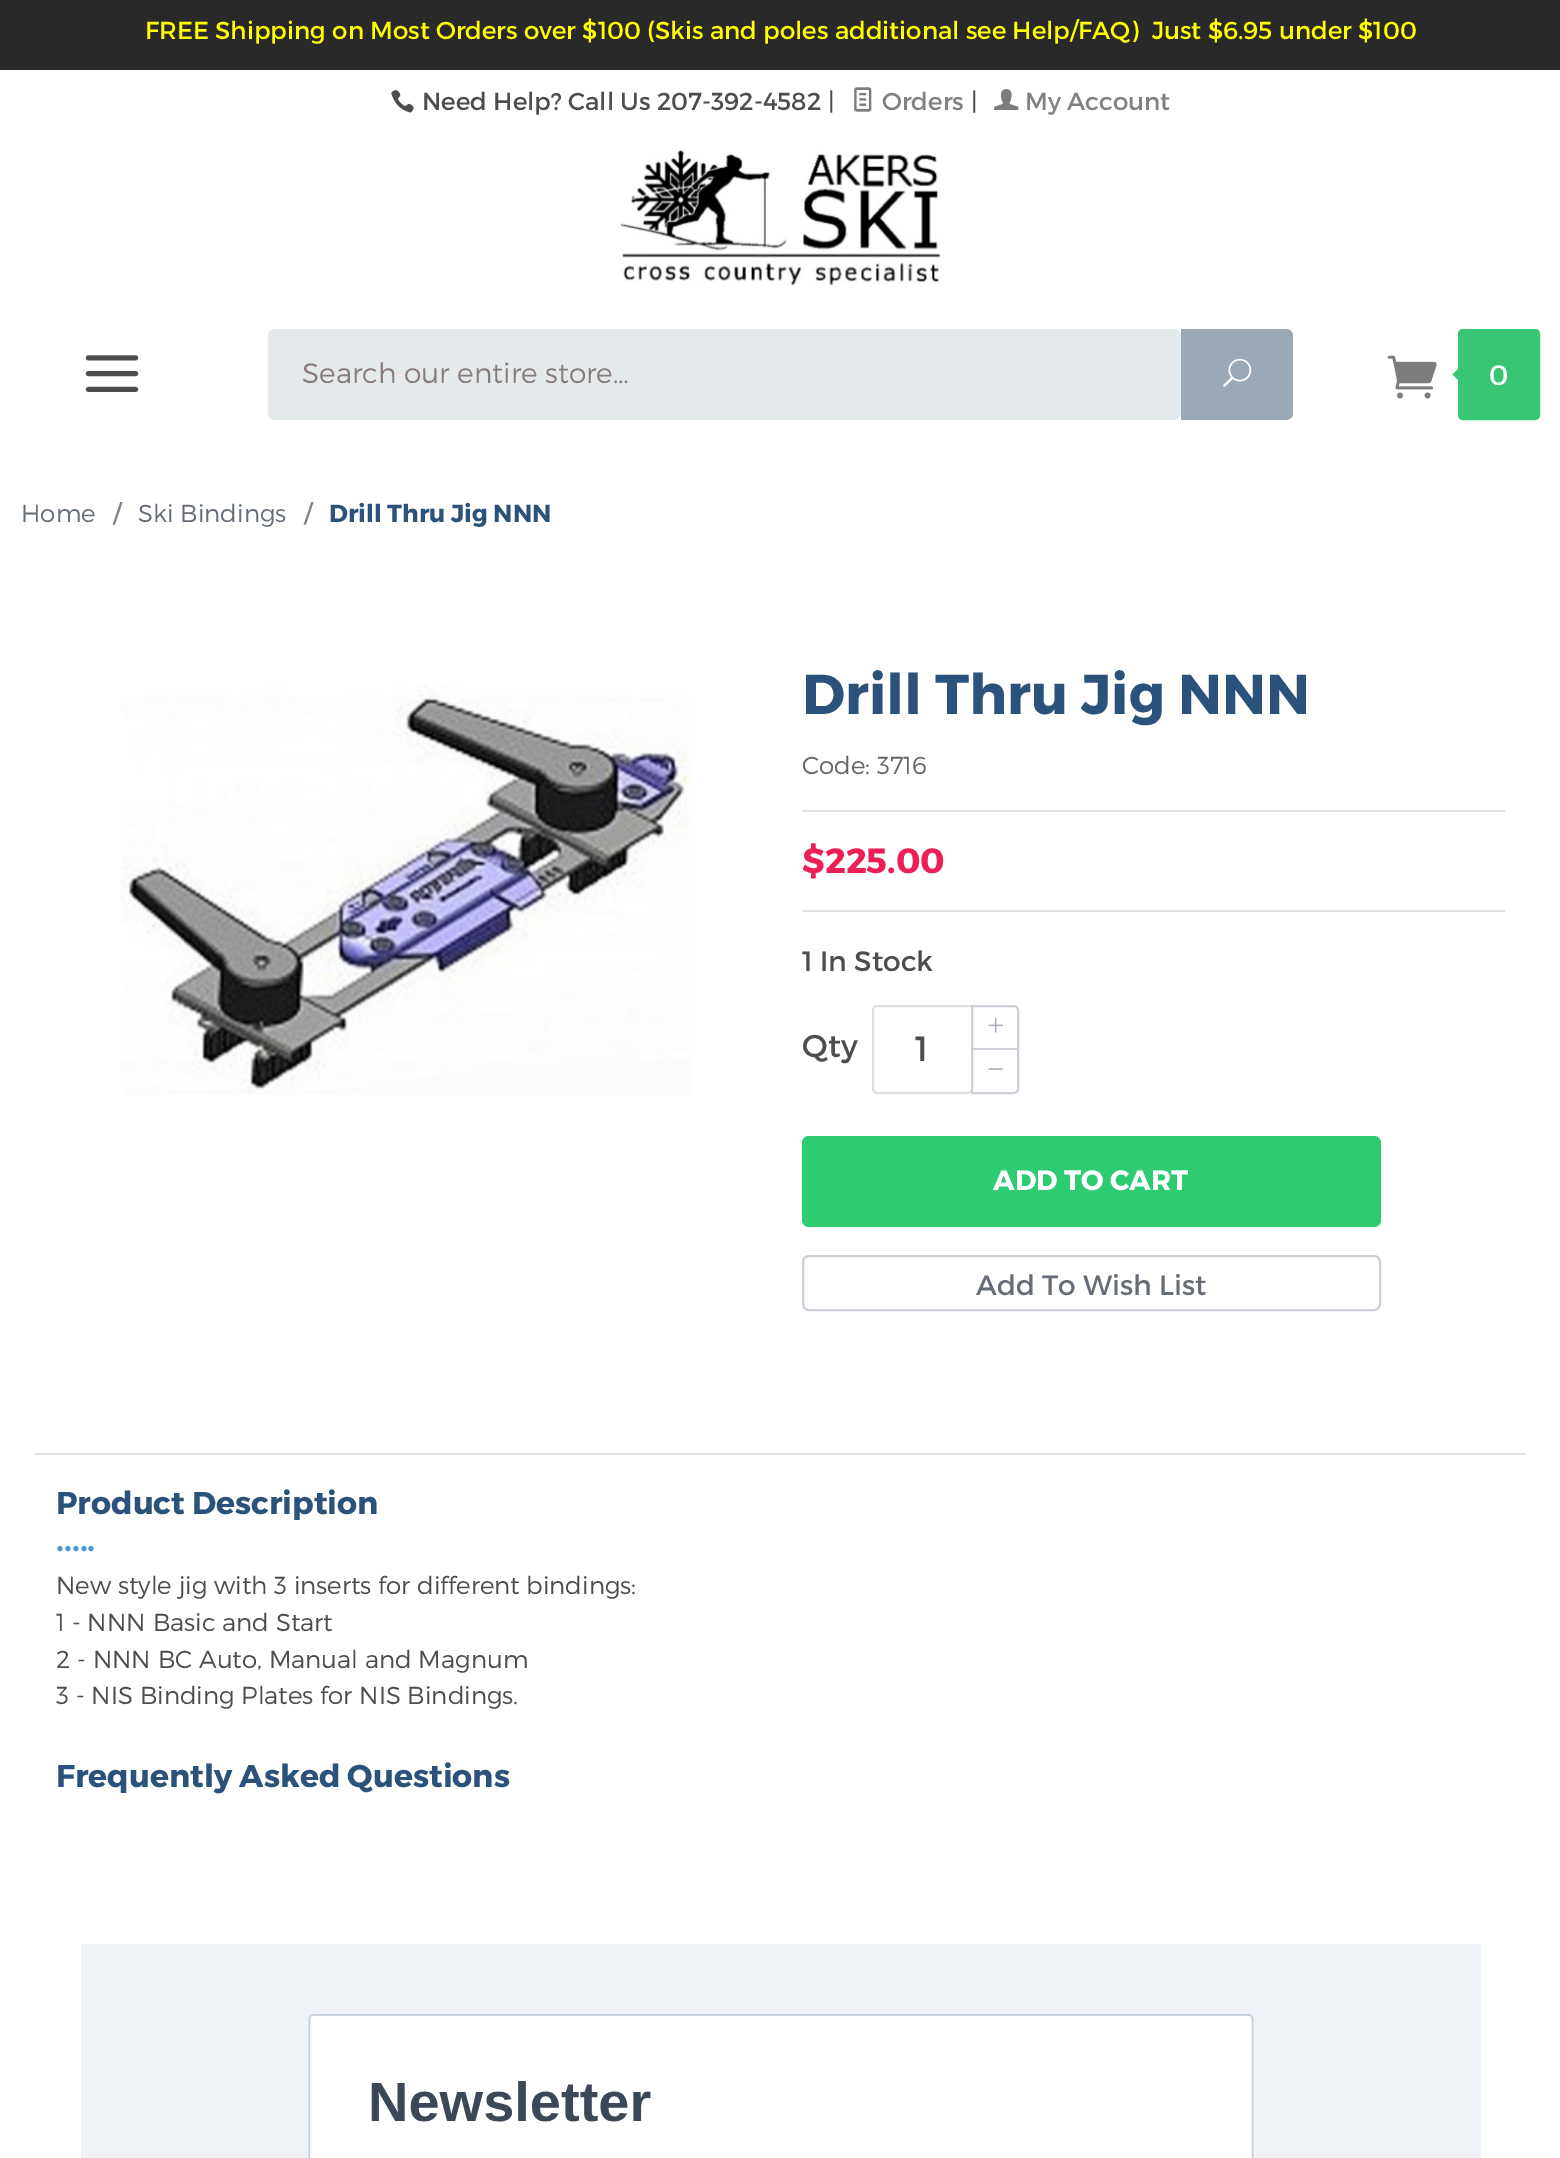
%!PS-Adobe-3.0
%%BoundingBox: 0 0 1560 2158
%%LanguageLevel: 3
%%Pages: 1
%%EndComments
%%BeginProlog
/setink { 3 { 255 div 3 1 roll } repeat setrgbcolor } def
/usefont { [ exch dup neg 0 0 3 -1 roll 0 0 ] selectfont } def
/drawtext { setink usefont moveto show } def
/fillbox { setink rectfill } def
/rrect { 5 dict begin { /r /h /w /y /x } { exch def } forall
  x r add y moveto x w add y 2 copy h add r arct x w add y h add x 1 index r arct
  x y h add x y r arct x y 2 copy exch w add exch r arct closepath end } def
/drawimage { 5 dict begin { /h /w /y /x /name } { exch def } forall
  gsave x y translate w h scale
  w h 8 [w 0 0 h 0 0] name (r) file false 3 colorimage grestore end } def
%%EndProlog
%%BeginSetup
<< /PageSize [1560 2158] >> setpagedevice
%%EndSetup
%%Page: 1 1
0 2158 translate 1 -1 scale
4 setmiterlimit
0 0 1560 2158 255 255 255 fillbox
0 0 1560 70 41 41 41 fillbox
(FREE Shipping on Most Orders over $100 \(Skis and poles additional see Help/FAQ\)  Just $6.95 under $100) 145 39 /Montserrat-Regular 24.5 255 255 0 drawtext
(assets/img1.rgb) 391 90 23 23 drawimage
(Need Help? Call Us 207-392-4582) 422 110 /Montserrat-Regular 24.5 77 77 77 drawtext
(|) 828 110 /Montserrat-Regular 24.5 77 77 77 drawtext
(assets/img2.rgb) 854 87 18 25 drawimage
(Orders) 882 110 /Montserrat-Regular 24.5 129 129 129 drawtext
(|) 971 110 /Montserrat-Regular 24.5 77 77 77 drawtext
(assets/img3.rgb) 994 89 25 21 drawimage
(My Account) 1025 110 /Montserrat-Regular 24.5 129 129 129 drawtext
(assets/img4.rgb) 620 150 321 136 drawimage
(assets/img5.rgb) 85 355 54 37 drawimage
228 234 235 setink
268 329 913 91 7 rrect fill
(Search our entire store…) 302 383 /Montserrat-Light 28 138 123 123 drawtext
155 168 181 setink
1181 329 moveto 1286 329 lineto 1290 329 1293 332 1293 336 curveto 1293 413 lineto 1293 417 1290 420 1286 420 curveto 1181 420 lineto closepath fill
(assets/img6.rgb) 1223 358 29 29 drawimage
(assets/img7.rgb) 1387 355 50 44 drawimage
56 197 116 setink
4 setlinewidth
1460 331 78 87 3 rrect stroke
1461 366 moveto 1461 383 lineto 1452.5 374.5 lineto closepath fill
1462 333 74 83 56 197 116 fillbox
(0) 1489 385 /Montserrat-Regular 28 255 255 255 drawtext
(Home) 21 522 /Montserrat-Light 24.5 101 109 120 drawtext
(/) 113 522 /Montserrat-Regular 24.5 129 129 129 drawtext
(Ski Bindings) 138 522 /Montserrat-Light 24.5 101 109 120 drawtext
(/) 304 522 /Montserrat-Regular 24.5 129 129 129 drawtext
(Drill Thru Jig NNN) 329 522 /Montserrat-Bold 24.5 42 82 122 drawtext
(assets/img8.rgb) 120 684 572 411 drawimage
(Drill Thru Jig NNN) 802 714 /Montserrat-Bold 56 42 82 122 drawtext
(Code: 3716) 802 774 /Montserrat-Light 24.5 101 101 101 drawtext
802 810 703 2 223 225 225 fillbox
($225.00) 802 873 /Montserrat-Bold 35 236 32 85 drawtext
802 910 703 2 223 225 225 fillbox
(1 In Stock) 802 971 /Montserrat-Regular 28 77 77 77 drawtext
(Qty) 802 1057 /Montserrat-Regular 31.5 77 77 77 drawtext
223 225 225 setink
2 setlinewidth
877 1006 moveto 972 1006 lineto 972 1089 lineto 972 1091 970 1093 968 1093 curveto 877 1093 lineto 875 1093 873 1091 873 1089 curveto 873 1010 lineto 873 1008 875 1006 877 1006 curveto closepath stroke
(1) 915 1061 /Montserrat-Regular 35 77 77 77 drawtext
204 209 217 setink
972 1006 moveto 1014 1006 lineto 1016 1006 1018 1008 1018 1010 curveto 1018 1089 lineto 1018 1091 1016 1093 1014 1093 curveto 972 1093 lineto closepath stroke
973 1048 44 2 204 209 217 fillbox
(assets/img9.rgb) 988 1018 15 15 drawimage
(assets/img10.rgb) 988 1068 15 2 drawimage
46 204 113 setink
802 1136 579 91 7 rrect fill
(ADD TO CART) 993 1190 /Montserrat-Bold 28 255 255 255 drawtext
204 209 217 setink
803 1256 577 54 6 rrect stroke
(Add To Wish List) 976 1295 /Montserrat-Regular 28 101 109 120 drawtext
35 1453 1491 2 223 225 225 fillbox
(Product Description) 56 1514 /Montserrat-Bold 31.5 42 82 122 drawtext
(•••••) 56 1556 /Montserrat-Regular 28 74 157 207 drawtext
(New style jig with 3 inserts for different bindings:) 56 1594 /Montserrat-Light 24.5 77 77 77 drawtext
(1 - NNN Basic and Start) 56 1631 /Montserrat-Light 24.5 77 77 77 drawtext
(2 - NNN BC Auto, Manual and Magnum) 56 1668 /Montserrat-Light 24.5 77 77 77 drawtext
(3 - NIS Binding Plates for NIS Bindings.) 56 1704 /Montserrat-Light 24.5 77 77 77 drawtext
(Frequently Asked Questions) 56 1787 /Montserrat-Bold 31.5 42 82 122 drawtext
(assets/img11.rgb) 81 1944 1400 214 drawimage
showpage
%%EOF
